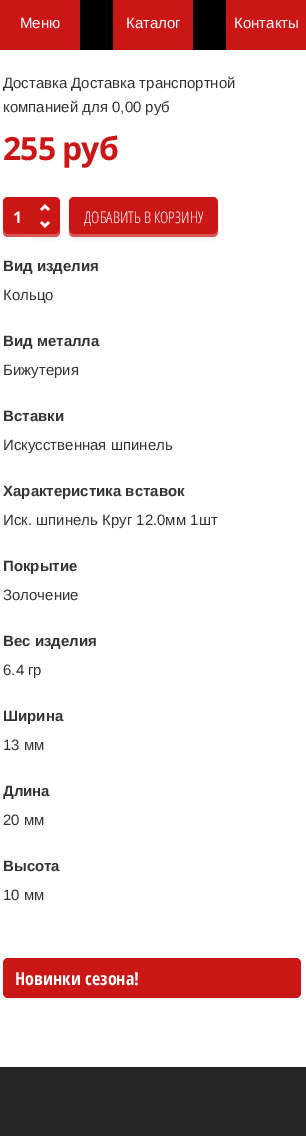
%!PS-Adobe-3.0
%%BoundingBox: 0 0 306 1136
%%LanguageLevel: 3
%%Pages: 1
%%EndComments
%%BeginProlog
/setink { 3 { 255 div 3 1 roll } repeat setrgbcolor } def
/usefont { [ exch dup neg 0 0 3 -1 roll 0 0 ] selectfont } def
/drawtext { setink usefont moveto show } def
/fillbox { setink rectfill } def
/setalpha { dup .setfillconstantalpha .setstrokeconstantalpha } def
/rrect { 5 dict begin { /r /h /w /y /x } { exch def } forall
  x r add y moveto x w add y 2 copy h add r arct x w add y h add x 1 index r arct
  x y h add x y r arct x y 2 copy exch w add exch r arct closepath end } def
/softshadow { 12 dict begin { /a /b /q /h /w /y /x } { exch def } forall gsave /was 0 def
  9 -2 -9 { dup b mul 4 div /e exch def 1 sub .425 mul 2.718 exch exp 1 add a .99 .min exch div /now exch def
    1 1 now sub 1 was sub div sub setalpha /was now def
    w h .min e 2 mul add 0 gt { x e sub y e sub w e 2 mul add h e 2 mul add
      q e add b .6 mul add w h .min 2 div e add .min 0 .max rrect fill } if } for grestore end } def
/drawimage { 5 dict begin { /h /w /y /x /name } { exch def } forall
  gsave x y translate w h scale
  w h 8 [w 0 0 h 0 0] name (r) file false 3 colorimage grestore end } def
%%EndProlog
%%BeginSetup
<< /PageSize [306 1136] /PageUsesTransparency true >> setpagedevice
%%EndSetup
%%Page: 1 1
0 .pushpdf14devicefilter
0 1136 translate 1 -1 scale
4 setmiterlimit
0 0 306 1136 255 255 255 fillbox
80 0 146 50 0 0 0 fillbox
0 0 80 50 203 22 22 fillbox
(Меню) 20 28 /LiberationSans-Regular 15 255 255 255 drawtext
113 0 80 50 203 22 22 fillbox
(Каталог) 126 28 /LiberationSans-Regular 15 255 255 255 drawtext
226 0 80 50 203 22 22 fillbox
(Контакты) 234 28 /LiberationSans-Regular 15 255 255 255 drawtext
(Доставка Доставка транспортной) 3 88 /LiberationSans-Regular 15 51 51 51 drawtext
(компанией для 0,00 руб) 3 112 /LiberationSans-Regular 15 51 51 51 drawtext
/OpenSans-Bold 32 usefont
203 22 22 setink
3 160 moveto -1 0 (255 руб) ashow
8 197 moveto 32 197 lineto 32 237 lineto 8 237 lineto 5 237 3 235 3 232 curveto 3 202 lineto 3 199 5 197 8 197 curveto closepath fill
0.27 setalpha
255 255 255 setink
3 229 moveto 3 232 lineto 3 235 5 237 8 237 curveto 32 237 lineto 32 234 lineto 8 234 lineto 5 234 3 232 3 229 curveto closepath fill
1 setalpha
(1) 13 223 /OpenSans-Bold 16 255 255 255 drawtext
203 22 22 setink
30 197 moveto 55 197 lineto 58 197 60 199 60 202 curveto 60 217 lineto 30 217 lineto closepath fill
(assets/img1.rgb) 40 204 10 7 drawimage
0 0 0 setink
30 220 30 20 5 1 0.06 softshadow
203 22 22 setink
30 217 moveto 60 217 lineto 60 232 lineto 60 235 58 237 55 237 curveto 30 237 lineto closepath fill
(assets/img2.rgb) 40 221 10 7 drawimage
0.27 setalpha
255 255 255 setink
30 234 moveto 30 237 lineto 55 237 lineto 58 237 60 235 60 232 curveto 60 229 lineto 60 232 58 234 55 234 curveto closepath fill
1 setalpha
0 0 0 setink
69 200 149 40 5 1 0.06 softshadow
203 22 22 setink
69 197 149 40 5 rrect fill
0.27 setalpha
255 255 255 setink
69 229 moveto 69 232 lineto 69 235 71 237 74 237 curveto 213 237 lineto 216 237 218 235 218 232 curveto 218 229 lineto 218 232 216 234 213 234 curveto 74 234 lineto 71 234 69 232 69 229 curveto closepath fill
1 setalpha
(ДОБАВИТЬ В КОРЗИНУ) 84 223 /OpenSansCondensed-Light 16 255 255 255 drawtext
(Вид изделия) 3 271 /LiberationSans-Bold 15 51 51 51 drawtext
(Кольцо) 3 300 /LiberationSans-Regular 15 51 51 51 drawtext
(Вид металла) 3 346 /LiberationSans-Bold 15 51 51 51 drawtext
(Бижутерия) 3 375 /LiberationSans-Regular 15 51 51 51 drawtext
(Вставки) 3 421 /LiberationSans-Bold 15 51 51 51 drawtext
(Искусственная шпинель) 3 450 /LiberationSans-Regular 15 51 51 51 drawtext
(Характеристика вставок) 3 496 /LiberationSans-Bold 15 51 51 51 drawtext
(Иск. шпинель Круг 12.0мм 1шт) 3 525 /LiberationSans-Regular 15 51 51 51 drawtext
(Покрытие) 3 571 /LiberationSans-Bold 15 51 51 51 drawtext
(Золочение) 3 600 /LiberationSans-Regular 15 51 51 51 drawtext
(Вес изделия) 3 646 /LiberationSans-Bold 15 51 51 51 drawtext
(6.4 гр) 3 675 /LiberationSans-Regular 15 51 51 51 drawtext
(Ширина) 3 721 /LiberationSans-Bold 15 51 51 51 drawtext
(13 мм) 3 750 /LiberationSans-Regular 15 51 51 51 drawtext
(Длина) 3 796 /LiberationSans-Bold 15 51 51 51 drawtext
(20 мм) 3 825 /LiberationSans-Regular 15 51 51 51 drawtext
(Высота) 3 871 /LiberationSans-Bold 15 51 51 51 drawtext
(10 мм) 3 900 /LiberationSans-Regular 15 51 51 51 drawtext
203 22 22 setink
3 958 298 40 5 rrect fill
(Новинки сезона!) 15 985 /OpenSansCondensed-Bold 18 255 255 255 drawtext
0 1067 306 69 38 38 38 fillbox
.poppdf14devicefilter showpage
%%EOF
